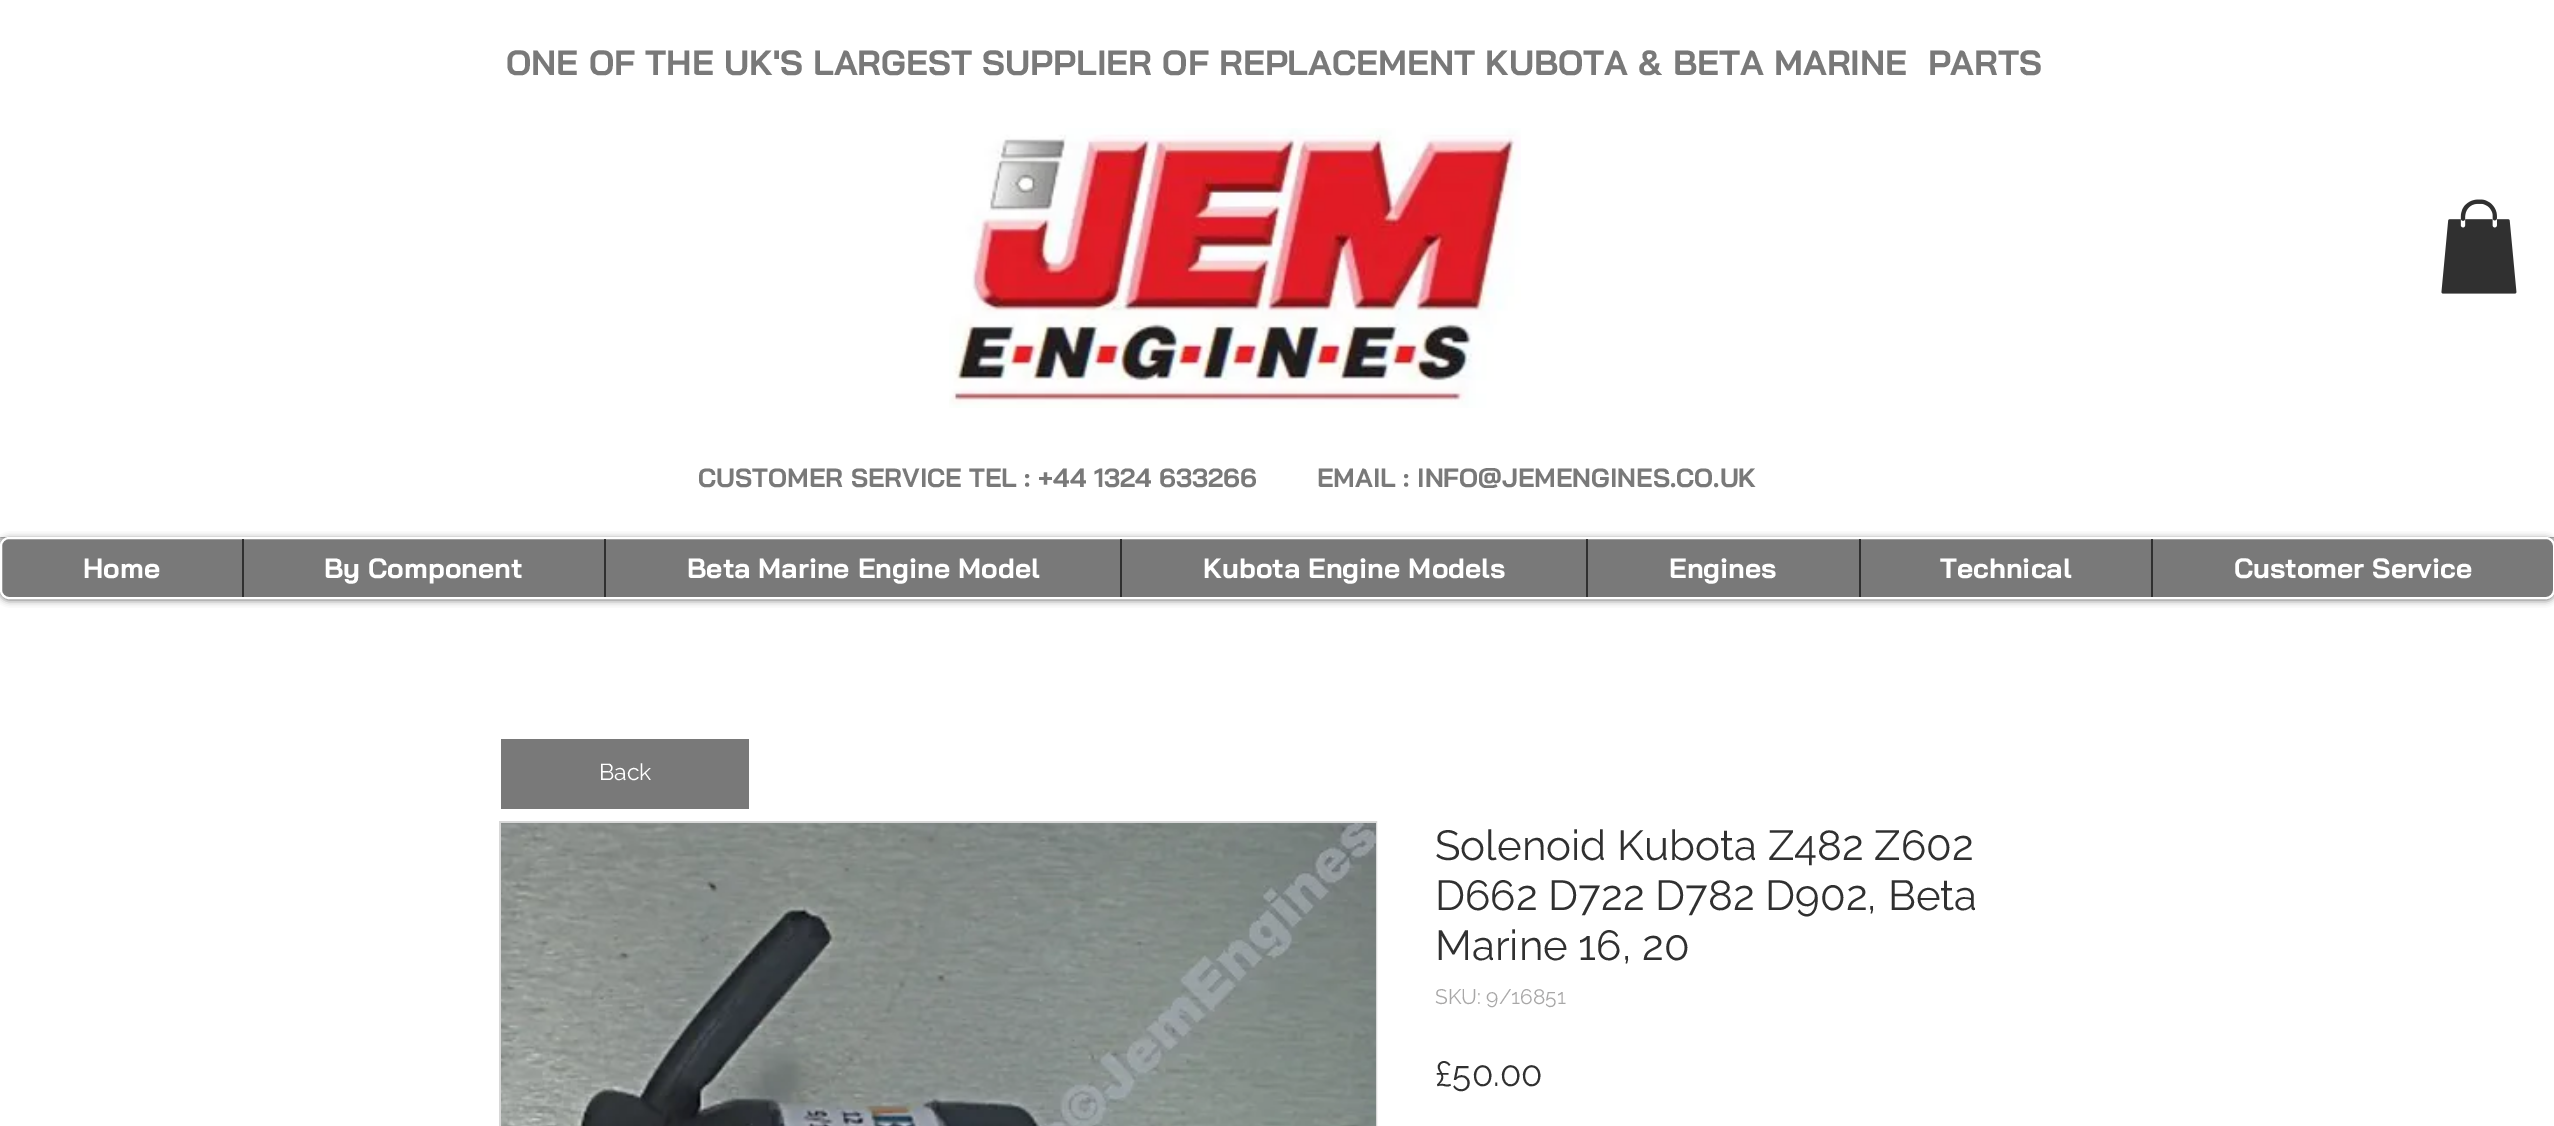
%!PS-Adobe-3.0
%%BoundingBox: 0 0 2554 1126
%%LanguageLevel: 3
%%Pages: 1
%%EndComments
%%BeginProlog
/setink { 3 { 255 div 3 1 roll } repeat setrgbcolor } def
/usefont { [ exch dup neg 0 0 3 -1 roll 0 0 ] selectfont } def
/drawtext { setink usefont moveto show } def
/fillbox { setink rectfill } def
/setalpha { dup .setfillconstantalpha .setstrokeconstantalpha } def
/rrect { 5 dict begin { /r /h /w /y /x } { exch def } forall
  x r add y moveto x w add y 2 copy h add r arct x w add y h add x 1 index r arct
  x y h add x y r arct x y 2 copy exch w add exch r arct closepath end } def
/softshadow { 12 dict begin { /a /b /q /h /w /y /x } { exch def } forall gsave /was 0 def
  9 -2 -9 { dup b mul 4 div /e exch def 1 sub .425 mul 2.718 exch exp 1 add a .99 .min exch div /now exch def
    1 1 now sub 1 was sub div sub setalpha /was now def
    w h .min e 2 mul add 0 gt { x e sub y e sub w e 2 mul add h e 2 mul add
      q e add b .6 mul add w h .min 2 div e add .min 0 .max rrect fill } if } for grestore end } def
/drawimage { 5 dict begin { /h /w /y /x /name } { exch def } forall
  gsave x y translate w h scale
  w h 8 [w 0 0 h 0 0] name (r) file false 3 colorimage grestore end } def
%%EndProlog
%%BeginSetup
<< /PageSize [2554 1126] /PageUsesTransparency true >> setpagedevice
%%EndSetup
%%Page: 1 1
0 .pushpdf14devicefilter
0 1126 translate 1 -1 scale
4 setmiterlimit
0 0 2554 1126 255 255 255 fillbox
gsave
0 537 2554 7 rectclip
0 0 0 setink
0 0 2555 537 0 4.5 0.7 softshadow
grestore
(ONE OF THE UK'S LARGEST SUPPLIER OF REPLACEMENT KUBOTA & BETA MARINE  PARTS) 506 75 /BaiJamjuree-Bold 35 121 121 121 drawtext
(assets/img1.rgb) 949 128 572 280 drawimage
(assets/img2.rgb) 2441 199 76 95 drawimage
(CUSTOMER SERVICE TEL : +44 1324 633266) 698 487 /BaiJamjuree-Bold 26.25 121 121 121 drawtext
(EMAIL : INFO@JEMENGINES.CO.UK) 1317 487 /BaiJamjuree-Bold 26.25 121 121 121 drawtext
0 0 0 setink
0 539 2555 61 9 3.5 0.6 softshadow
121 121 121 setink
1 538 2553 60 8 rrect gsave fill grestore
255 255 255 setink
2 setlinewidth
stroke
(Home) 83 578 /BaiJamjuree-Bold 28 255 255 255 drawtext
242 539 2 58 48 48 48 fillbox
(By Component) 324 578 /BaiJamjuree-Bold 28 255 255 255 drawtext
604 539 2 58 48 48 48 fillbox
(Beta Marine Engine Model) 687 578 /BaiJamjuree-Bold 28 255 255 255 drawtext
1120 539 2 58 48 48 48 fillbox
(Kubota Engine Models) 1203 578 /BaiJamjuree-Bold 28 255 255 255 drawtext
1586 539 2 58 48 48 48 fillbox
(Engines) 1669 578 /BaiJamjuree-Bold 28 255 255 255 drawtext
1859 539 2 58 48 48 48 fillbox
(Technical) 1940 578 /BaiJamjuree-Bold 28 255 255 255 drawtext
2151 539 2 58 48 48 48 fillbox
(Customer Service) 2234 578 /BaiJamjuree-Bold 28 255 255 255 drawtext
501 739 248 70 121 121 121 fillbox
(Back) 599 780 /Raleway-Regular 23 255 255 255 drawtext
216 216 216 setink
500 822 876 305 rectstroke
(assets/img3.rgb) 501 823 875 303 drawimage
(Solenoid Kubota Z482 Z602) 1435 860 /Raleway-Regular 42 48 48 48 drawtext
(D662 D722 D782 D902, Beta) 1435 910 /Raleway-Regular 42 48 48 48 drawtext
(Marine 16, 20) 1435 960 /Raleway-Regular 42 48 48 48 drawtext
(SKU: 9/16851) 1435 1004 /Raleway-Regular 21 168 167 167 drawtext
(£50.00) 1435 1086 /Raleway-Regular 35 48 48 48 drawtext
.poppdf14devicefilter showpage
%%EOF
